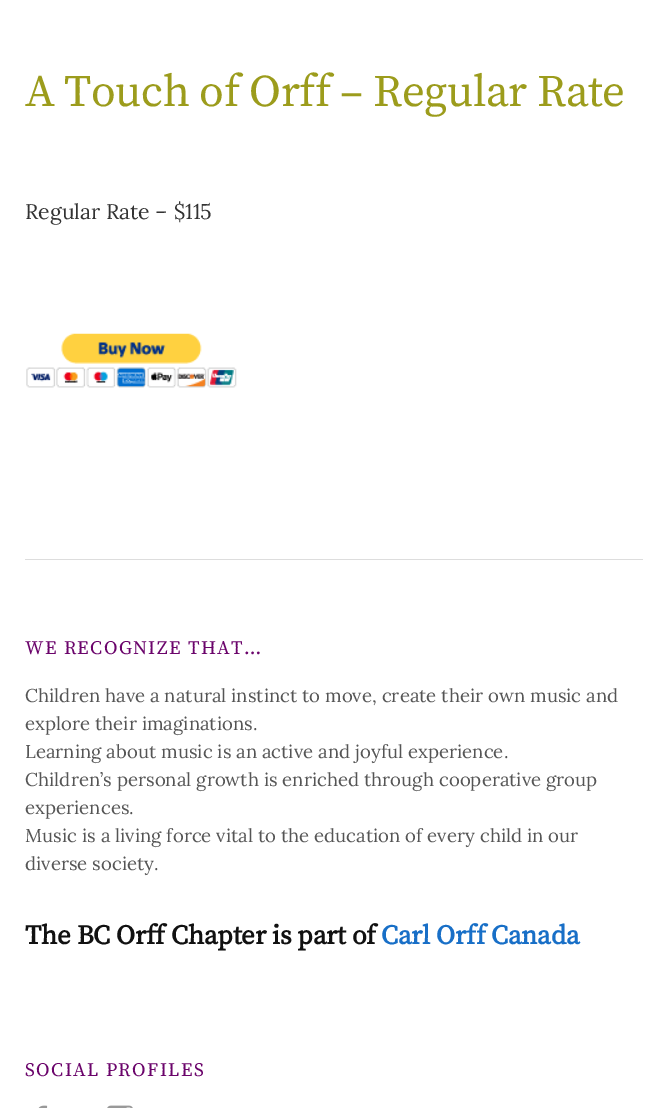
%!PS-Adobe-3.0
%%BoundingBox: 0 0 667 1108
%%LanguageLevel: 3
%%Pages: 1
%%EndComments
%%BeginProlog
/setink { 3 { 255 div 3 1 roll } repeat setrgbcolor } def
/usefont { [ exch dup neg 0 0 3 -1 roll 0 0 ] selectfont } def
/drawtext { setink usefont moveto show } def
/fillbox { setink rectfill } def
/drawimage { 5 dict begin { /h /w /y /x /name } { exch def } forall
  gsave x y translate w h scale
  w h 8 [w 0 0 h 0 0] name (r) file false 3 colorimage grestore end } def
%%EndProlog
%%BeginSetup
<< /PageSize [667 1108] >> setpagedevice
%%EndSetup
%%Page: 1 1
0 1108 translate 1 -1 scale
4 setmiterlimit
0 0 667 1108 255 255 255 fillbox
/SourceSerifPro-Regular 45 usefont
156 156 28 setink
25 106 moveto -0.45 0 (A Touch of Orff – Regular Rate) ashow
(Regular Rate – $115) 25 219 /Lora-Regular 21.25 51 51 51 drawtext
(assets/img1.rgb) 26 333 211 55 drawimage
25 559 618 1 221 221 221 fillbox
/SourceSerifPro-Regular 19.1 usefont
107 4 107 setink
25 654 moveto 1.4 0 (WE RECOGNIZE THAT…) ashow
(Children have a natural instinct to move, create their own music and) 25 702 /Lora-Regular 18.6 85 85 85 drawtext
(explore their imaginations.) 25 730 /Lora-Regular 18.6 85 85 85 drawtext
(Learning about music is an active and joyful experience.) 25 758 /Lora-Regular 18.6 85 85 85 drawtext
(Children’s personal growth is enriched through cooperative group) 25 786 /Lora-Regular 18.6 85 85 85 drawtext
(experiences.) 25 814 /Lora-Regular 18.6 85 85 85 drawtext
(Music is a living force vital to the education of every child in our) 25 842 /Lora-Regular 18.6 85 85 85 drawtext
(diverse society.) 25 870 /Lora-Regular 18.6 85 85 85 drawtext
/SourceSerifPro-Bold 27 usefont
17 17 17 setink
25 944 moveto -0.25 0 (The BC Orff Chapter is part of) ashow
24 111 199 setink
381 944 moveto -0.25 0 (Carl Orff Canada) ashow
/SourceSerifPro-Regular 19.1 usefont
107 4 107 setink
25 1076 moveto 1.4 0 (SOCIAL PROFILES) ashow
(assets/img2.rgb) 38 1105 10 3 drawimage
(assets/img3.rgb) 107 1105 26 3 drawimage
showpage
%%EOF
